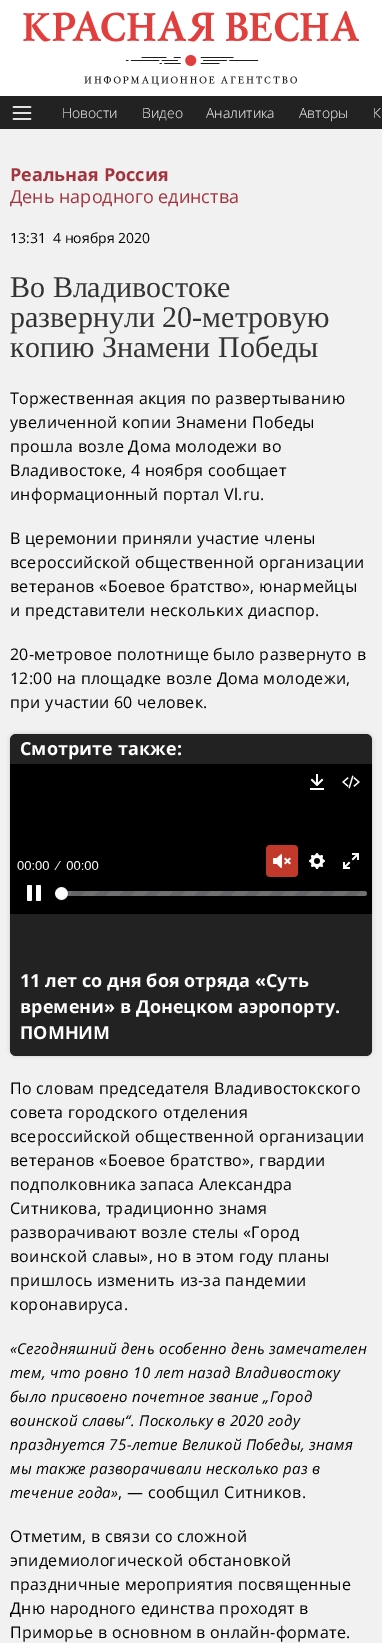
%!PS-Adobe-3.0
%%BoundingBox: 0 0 382 1643
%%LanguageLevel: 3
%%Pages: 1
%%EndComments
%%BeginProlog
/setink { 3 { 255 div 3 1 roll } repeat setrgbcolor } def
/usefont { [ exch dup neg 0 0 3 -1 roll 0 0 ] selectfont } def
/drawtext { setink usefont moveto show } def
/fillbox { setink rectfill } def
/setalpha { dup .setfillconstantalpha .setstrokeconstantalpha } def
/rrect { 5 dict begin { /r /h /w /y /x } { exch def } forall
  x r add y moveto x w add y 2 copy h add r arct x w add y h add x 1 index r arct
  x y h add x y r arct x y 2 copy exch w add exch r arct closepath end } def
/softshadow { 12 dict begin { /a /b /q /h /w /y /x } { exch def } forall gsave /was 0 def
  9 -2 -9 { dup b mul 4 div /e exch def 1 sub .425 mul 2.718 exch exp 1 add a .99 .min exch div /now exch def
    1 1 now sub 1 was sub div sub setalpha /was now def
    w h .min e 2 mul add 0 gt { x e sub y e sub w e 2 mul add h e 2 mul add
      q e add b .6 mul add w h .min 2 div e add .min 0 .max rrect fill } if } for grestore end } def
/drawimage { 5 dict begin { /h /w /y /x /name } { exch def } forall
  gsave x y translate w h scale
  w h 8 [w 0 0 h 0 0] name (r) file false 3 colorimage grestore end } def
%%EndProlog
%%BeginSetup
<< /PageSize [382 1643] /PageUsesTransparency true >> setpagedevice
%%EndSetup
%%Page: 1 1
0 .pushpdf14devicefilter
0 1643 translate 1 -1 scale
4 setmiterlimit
0 0 382 1643 241 241 241 fillbox
0 0 382 96 255 255 255 fillbox
(assets/img1.rgb) 23 11 336 75 drawimage
0 96 382 33 34 34 34 fillbox
(assets/img2.rgb) 12 106 20 14 drawimage
(Новости) 62 118 /OpenSans-Light 14 255 255 255 drawtext
(Видео) 142 118 /OpenSans-Light 14 255 255 255 drawtext
(Аналитика) 206 118 /OpenSans-Light 14 255 255 255 drawtext
(Авторы) 299 118 /OpenSans-Light 14 255 255 255 drawtext
(К) 373 118 /OpenSans-Light 14 255 255 255 drawtext
(Реальная Россия) 10 181 /OpenSans-Bold 18 163 51 61 drawtext
(День народного единства) 10 203 /OpenSans-Regular 18 163 51 61 drawtext
(13:31  4 ноября 2020) 10 243 /OpenSans-Regular 14 0 0 0 drawtext
(Во Владивостоке) 10 297 /LiberationSerif-Regular 30 51 51 51 drawtext
(развернули 20-метровую) 10 327 /LiberationSerif-Regular 30 51 51 51 drawtext
(копию Знамени Победы) 10 357 /LiberationSerif-Regular 30 51 51 51 drawtext
/OpenSans-Regular 16 usefont
0 0 0 setink
10 404 moveto 0.3 0 (Торжественная акция по развертыванию) ashow
10 428 moveto 0.3 0 (увеличенной копии Знамени Победы) ashow
10 452 moveto 0.3 0 (прошла возле Дома молодежи во) ashow
10 476 moveto 0.3 0 (Владивостоке, 4 ноября сообщает) ashow
10 500 moveto 0.3 0 (информационный портал Vl.ru.) ashow
10 544 moveto 0.3 0 (В церемонии приняли участие члены) ashow
10 568 moveto 0.3 0 (всероссийской общественной организации) ashow
10 592 moveto 0.3 0 (ветеранов «Боевое братство», юнармейцы) ashow
10 616 moveto 0.3 0 (и представители нескольких диаспор.) ashow
10 660 moveto 0.3 0 (20-метровое полотнище было развернуто в) ashow
10 684 moveto 0.3 0 (12:00 на площадке возле Дома молодежи,) ashow
10 708 moveto 0.3 0 (при участии 60 человек.) ashow
112 112 112 setink
13 737 356 316 3 3 1 softshadow
34 34 34 setink
10 734 362 322 6 rrect fill
/OpenSans-Bold 18 usefont
255 255 255 setink
20 755 moveto 1 0 32 (Смотрите также:) widthshow
(assets/img3.rgb) 10 764 362 150 drawimage
(11 лет со дня боя отряда «Суть) 20 987 /OpenSans-Bold 18 255 255 255 drawtext
(времени» в Донецком аэропорту.) 20 1013 /OpenSans-Bold 18 255 255 255 drawtext
(ПОМНИМ) 20 1039 /OpenSans-Bold 18 255 255 255 drawtext
/OpenSans-Regular 16 usefont
0 0 0 setink
10 1094 moveto 0.3 0 (По словам председателя Владивостокского) ashow
10 1118 moveto 0.3 0 (совета городского отделения) ashow
10 1142 moveto 0.3 0 (всероссийской общественной организации) ashow
10 1166 moveto 0.3 0 (ветеранов «Боевое братство», гвардии) ashow
10 1190 moveto 0.3 0 (подполковника запаса Александра) ashow
10 1214 moveto 0.3 0 (Ситникова, традиционно знамя) ashow
10 1238 moveto 0.3 0 (разворачивают возле стелы «Город) ashow
10 1262 moveto 0.3 0 (воинской славы», но в этом году планы) ashow
10 1286 moveto 0.3 0 (пришлось изменить из-за пандемии) ashow
10 1310 moveto 0.3 0 (коронавируса.) ashow
/OpenSans-Italic 15 usefont
10 1354 moveto 0.3 0 («Сегодняшний день особенно день замечателен) ashow
10 1378 moveto 0.3 0 (тем, что ровно 10 лет назад Владивостоку) ashow
10 1402 moveto 0.3 0 (было присвоено почетное звание „Город) ashow
10 1426 moveto 0.3 0 (воинской славы“. Поскольку в 2020 году) ashow
10 1450 moveto 0.3 0 (празднуется 75-летие Великой Победы, знамя) ashow
10 1474 moveto 0.3 0 (мы также разворачивали несколько раз в) ashow
10 1498 moveto 0.3 0 (течение года») ashow
/OpenSans-Regular 16 usefont
118 1498 moveto 0.3 0 (, — сообщил Ситников.) ashow
10 1542 moveto 0.3 0 (Отметим, в связи со сложной) ashow
10 1566 moveto 0.3 0 (эпидемиологической обстановкой) ashow
10 1590 moveto 0.3 0 (праздничные мероприятия посвященные) ashow
10 1614 moveto 0.3 0 (Дню народного единства проходят в) ashow
10 1638 moveto 0.3 0 (Приморье в основном в онлайн-формате.) ashow
.poppdf14devicefilter showpage
%%EOF
